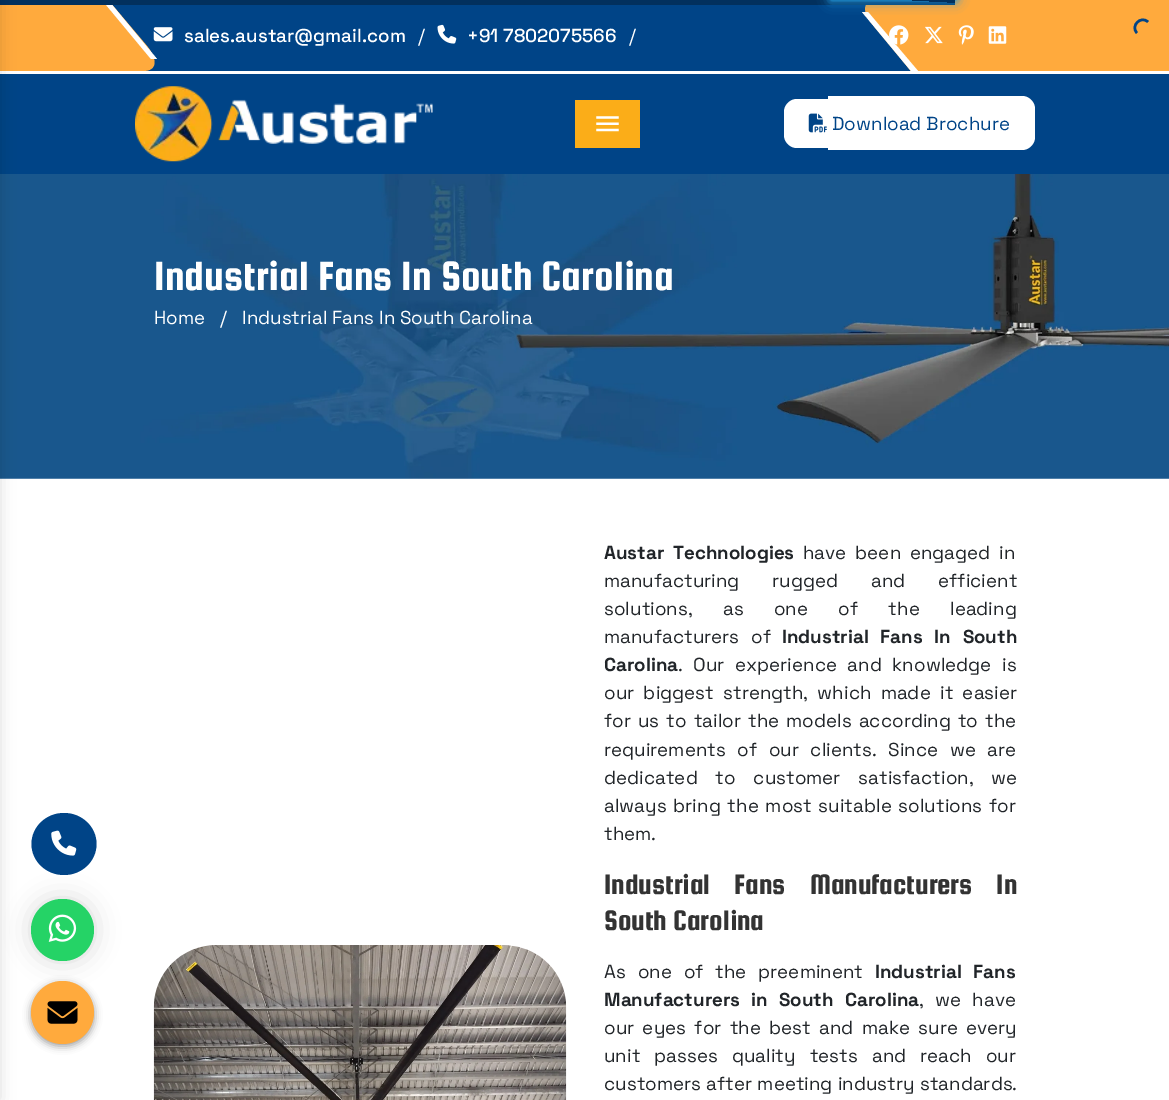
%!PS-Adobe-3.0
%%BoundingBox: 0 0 1169 1100
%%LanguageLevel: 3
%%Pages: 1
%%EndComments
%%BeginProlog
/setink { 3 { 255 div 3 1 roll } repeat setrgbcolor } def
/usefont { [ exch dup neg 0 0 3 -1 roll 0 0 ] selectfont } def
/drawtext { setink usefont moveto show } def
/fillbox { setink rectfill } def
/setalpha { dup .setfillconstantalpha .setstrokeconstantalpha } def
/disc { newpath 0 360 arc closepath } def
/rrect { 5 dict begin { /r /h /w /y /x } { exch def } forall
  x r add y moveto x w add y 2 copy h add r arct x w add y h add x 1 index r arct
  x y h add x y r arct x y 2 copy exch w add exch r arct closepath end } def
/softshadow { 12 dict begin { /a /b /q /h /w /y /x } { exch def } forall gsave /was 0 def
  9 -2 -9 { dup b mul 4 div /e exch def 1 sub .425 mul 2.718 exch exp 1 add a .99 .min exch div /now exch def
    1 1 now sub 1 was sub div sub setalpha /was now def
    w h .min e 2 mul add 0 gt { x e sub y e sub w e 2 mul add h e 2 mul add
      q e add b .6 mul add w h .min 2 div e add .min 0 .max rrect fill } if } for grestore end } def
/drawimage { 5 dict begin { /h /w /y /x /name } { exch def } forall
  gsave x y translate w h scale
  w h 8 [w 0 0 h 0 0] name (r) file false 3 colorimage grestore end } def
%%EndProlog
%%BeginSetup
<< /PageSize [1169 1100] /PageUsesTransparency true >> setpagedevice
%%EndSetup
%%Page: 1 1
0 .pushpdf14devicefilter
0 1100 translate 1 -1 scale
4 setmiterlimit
0 0 1169 1100 255 255 255 fillbox
112 5 799 66 0 68 135 fillbox
255 170 61 setink
-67 0 moveto 108 0 lineto 147 46 lineto 158 60 157 71 143 71 curveto -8 71 lineto closepath fill
255 255 255 setink
102 0 moveto 108 0 lineto 157 59 lineto 151 59 lineto closepath fill
255 170 61 setink
877 0 moveto 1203 0 lineto 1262 71 lineto 911 71 lineto 873 25 lineto 861 11 863 0 877 0 curveto closepath fill
0 0 955 5 2 48 93 fillbox
gsave
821 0 moveto 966 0 lineto 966 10 lineto 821 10 lineto closepath 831 -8.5 moveto 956 -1.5 lineto 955.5 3.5 lineto 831 -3.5 lineto closepath eoclip newpath
34 153 221 setink
831 -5 125 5 0 3 1 softshadow
grestore
255 255 255 setink
862 12 moveto 868 12 lineto 918 71 lineto 911 71 lineto closepath fill
gsave
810 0 moveto 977 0 lineto 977 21 lineto 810 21 lineto closepath 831 -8.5 moveto 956 -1.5 lineto 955.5 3.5 lineto 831 -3.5 lineto closepath eoclip newpath
34 153 221 setink
831 -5 125 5 0 6.5 1 softshadow
grestore
0 68 135 setink
2.5 setlinewidth
1137 33 moveto 1130 26 1141 15 1148 22 curveto stroke
0 74 1169 100 0 68 135 fillbox
(assets/img10.rgb) 0 174 1169 305 drawimage
0 0 0 setink
-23 0 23 1100 0 7.5 0.14 softshadow
(assets/img1.rgb) 153 27 20 15 drawimage
(sales.austar@gmail.com) 184 42 /SpaceGrotesk-Medium 18.75 255 255 255 drawtext
(/) 418 42 /SpaceGrotesk-Regular 18.75 255 255 255 drawtext
(assets/img2.rgb) 437 24 20 20 drawimage
(+91 7802075566) 467 42 /SpaceGrotesk-Medium 18.75 255 255 255 drawtext
(/) 629 42 /SpaceGrotesk-Regular 18.75 255 255 255 drawtext
(assets/img3.rgb) 889 25 20 20 drawimage
(assets/img4.rgb) 925 26 18 18 drawimage
(assets/img5.rgb) 958 25 16 20 drawimage
(assets/img6.rgb) 988 26 19 18 drawimage
(assets/img7.rgb) 135 86 298 76 drawimage
575 100 65 48 251 173 24 fillbox
(assets/img8.rgb) 596 116 23 16 drawimage
255 255 255 setink
797 99 moveto 828 99 lineto 828 148 lineto 797 148 lineto 790 148 784 142 784 135 curveto 784 112 lineto 784 105 790 99 797 99 curveto closepath fill
828 96 moveto 1022 96 lineto 1029 96 1035 102 1035 109 curveto 1035 137 lineto 1035 144 1029 150 1022 150 curveto 828 150 lineto closepath fill
(assets/img9.rgb) 808 113 19 20 drawimage
(Download Brochure) 832 130 /SpaceGrotesk-Regular 18.75 0 68 135 drawtext
(Industrial Fans In South Carolina) 154 290 /SquadaOne-Regular 43.75 255 255 255 drawtext
(Home) 154 324 /SpaceGrotesk-Regular 18.75 255 255 255 drawtext
(/) 220 324 /SpaceGrotesk-Regular 18.75 255 255 255 drawtext
(Industrial Fans In South Carolina) 242 324 /SpaceGrotesk-Regular 18.75 255 255 255 drawtext
0 68 135 setink
64 813 moveto 82 813 96.5 827 96.5 844 curveto 96.5 861 82 875 64 875 curveto 46 875 31.5 861 31.5 844 curveto 31.5 827 46 813 64 813 curveto closepath fill
(assets/img11.rgb) 51 830 26 26 drawimage
(assets/img12.rgb) 153 945 414 155 drawimage
/SpaceGrotesk-Bold 18.75 usefont
33 37 41 setink
604 559 moveto 4 0 32 (Austar Technologies) widthshow
/SpaceGrotesk-Regular 18.75 usefont
803 559 moveto 4 0 32 (have been engaged in) widthshow
604 587 moveto 28 0 32 (manufacturing rugged and efficient) widthshow
604 615 moveto 25.5 0 32 (solutions, as one of the leading) widthshow
604 643 moveto 7 0 32 (manufacturers of) widthshow
/SpaceGrotesk-Bold 18.75 usefont
782 643 moveto 7 0 32 (Industrial Fans In South) widthshow
(Carolina) 604 671 /SpaceGrotesk-Bold 18.75 33 37 41 drawtext
/SpaceGrotesk-Regular 18.75 usefont
678 671 moveto 5.75 0 32 (. Our experience and knowledge is) widthshow
604 699 moveto 4.5 0 32 (our biggest strength, which made it easier) widthshow
604 727 moveto 2.25 0 32 (for us to tailor the models according to the) widthshow
604 756 moveto 6.75 0 32 (requirements of our clients. Since we are) widthshow
604 784 moveto 13 0 32 (dedicated to customer satisfaction, we) widthshow
604 812 moveto 2 0 32 (always bring the most suitable solutions for) widthshow
(them.) 604 840 /SpaceGrotesk-Regular 18.75 33 37 41 drawtext
/SquadaOne-Regular 30 usefont
51 51 51 setink
604 894 moveto 18 0 32 (Industrial Fans Manufacturers In) widthshow
(South Carolina) 604 930 /SquadaOne-Regular 30 51 51 51 drawtext
/SpaceGrotesk-Regular 18.75 usefont
33 37 41 setink
604 978 moveto 7 0 32 (As one of the preeminent) widthshow
/SpaceGrotesk-Bold 18.75 usefont
875 978 moveto 7 0 32 (Industrial Fans) widthshow
604 1006 moveto 6.5 0 32 (Manufacturers in South Carolina) widthshow
/SpaceGrotesk-Regular 18.75 usefont
919 1006 moveto 6.5 0 32 (, we have) widthshow
604 1034 moveto 3.5 0 32 (our eyes for the best and make sure every) widthshow
604 1062 moveto 9.25 0 32 (unit passes quality tests and reach our) widthshow
604 1090 moveto 0.5 0 32 (customers after meeting industry standards.) widthshow
0 0 0 setink
31 899 63 62 31 12.5 0.15 softshadow
37 211 102 setink
31 899 63 62 31 rrect fill
(assets/img13.rgb) 48 914 29 28 drawimage
0 0 0 setink
31 984 63 62 31 4 0.4 softshadow
255 170 61 setink
62.5 1012.5 31.5 disc fill
(assets/img14.rgb) 47 1001 31 23 drawimage
.poppdf14devicefilter showpage
%%EOF
